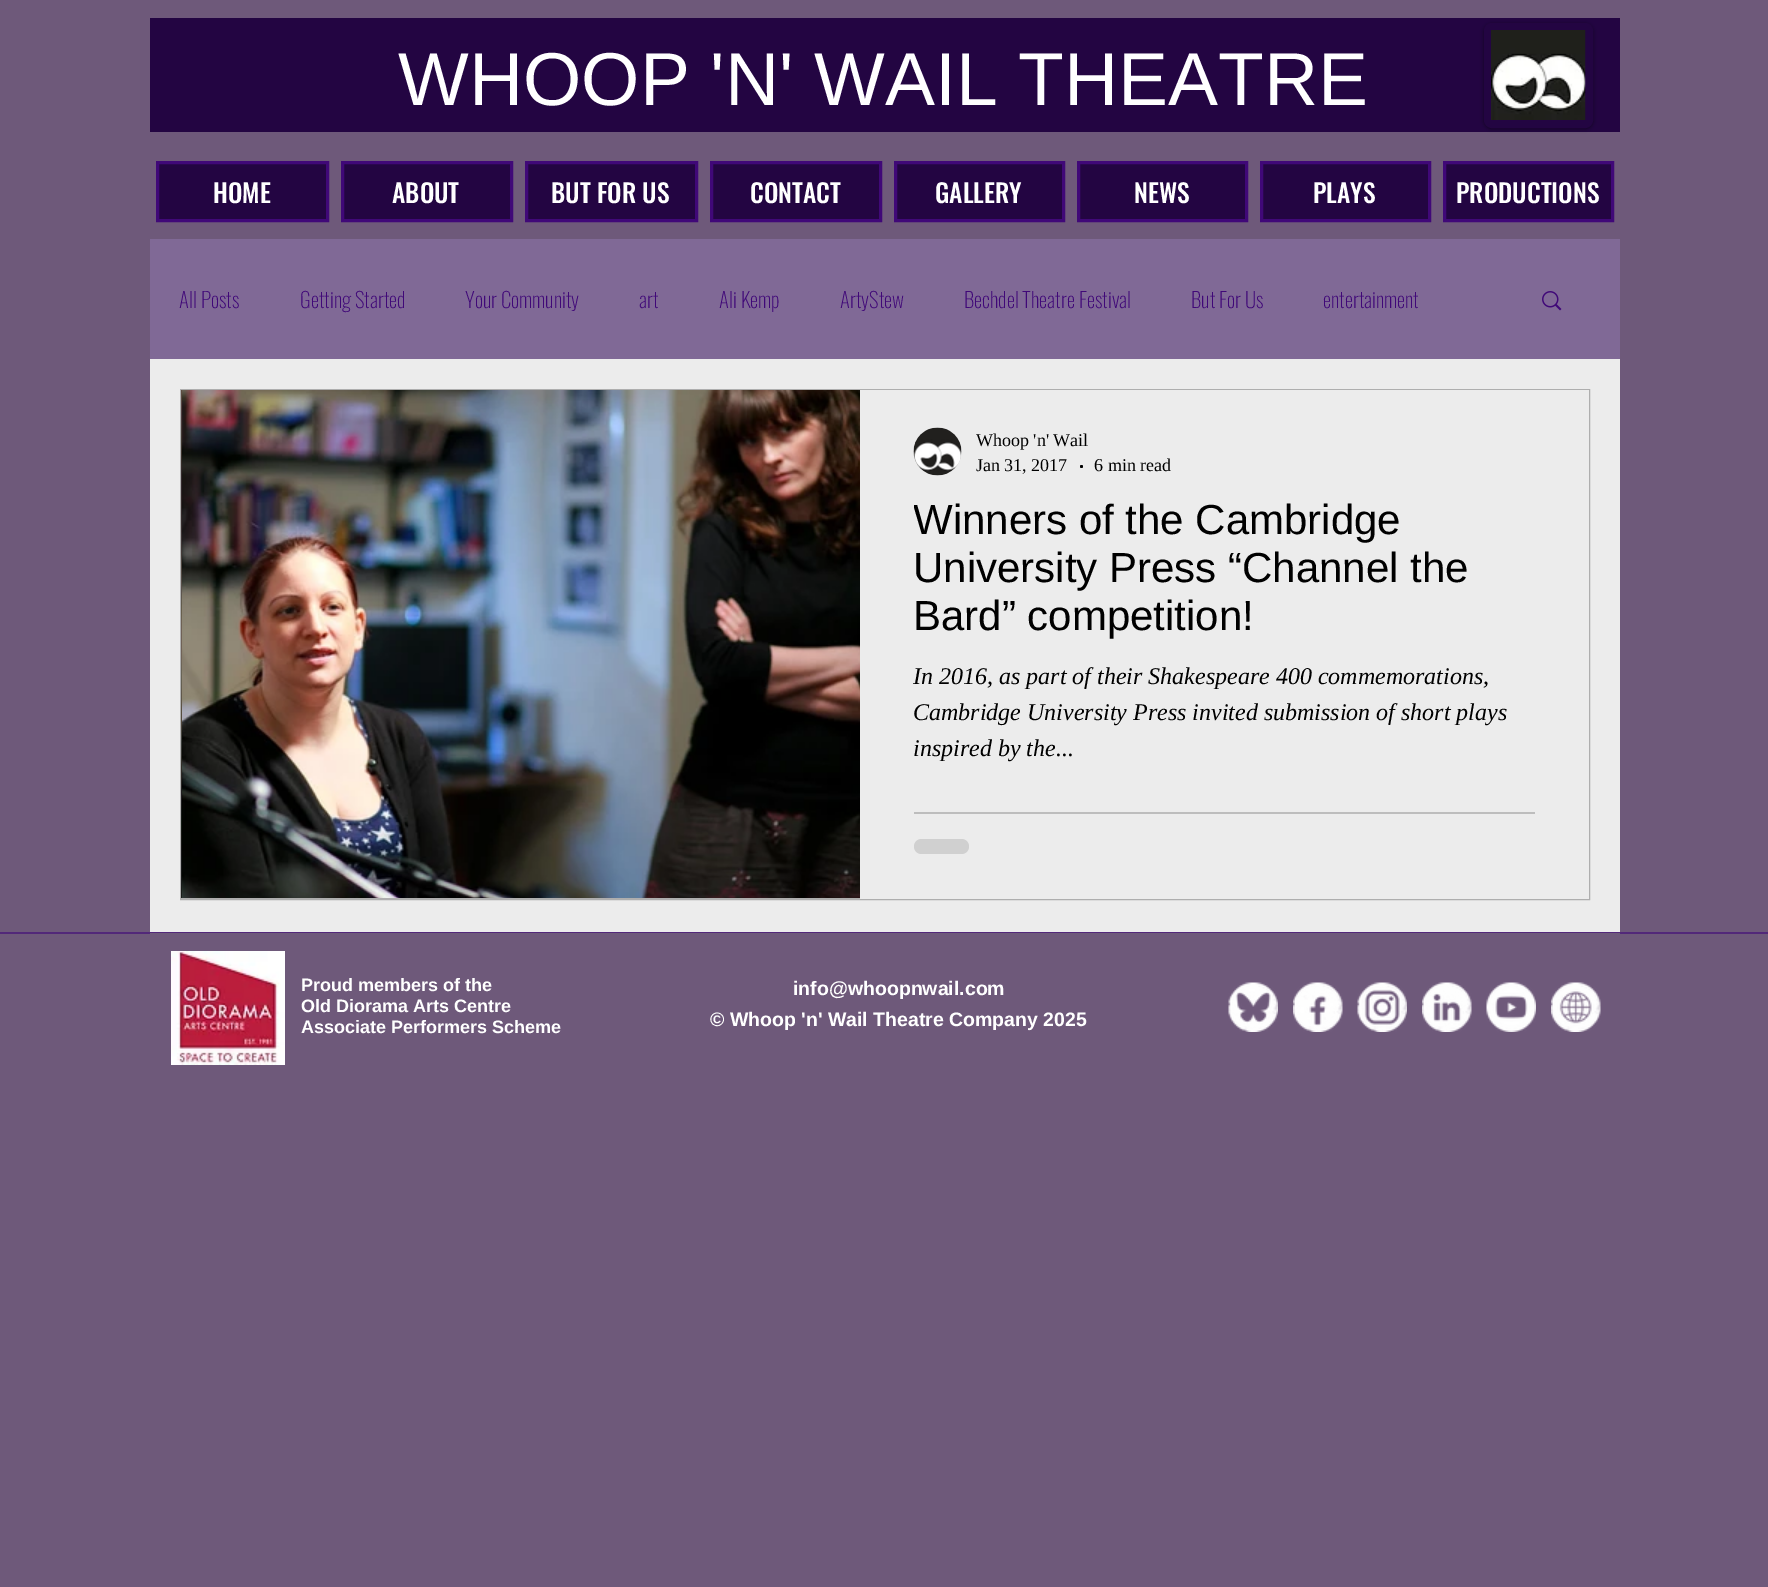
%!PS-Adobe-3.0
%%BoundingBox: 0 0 1768 1587
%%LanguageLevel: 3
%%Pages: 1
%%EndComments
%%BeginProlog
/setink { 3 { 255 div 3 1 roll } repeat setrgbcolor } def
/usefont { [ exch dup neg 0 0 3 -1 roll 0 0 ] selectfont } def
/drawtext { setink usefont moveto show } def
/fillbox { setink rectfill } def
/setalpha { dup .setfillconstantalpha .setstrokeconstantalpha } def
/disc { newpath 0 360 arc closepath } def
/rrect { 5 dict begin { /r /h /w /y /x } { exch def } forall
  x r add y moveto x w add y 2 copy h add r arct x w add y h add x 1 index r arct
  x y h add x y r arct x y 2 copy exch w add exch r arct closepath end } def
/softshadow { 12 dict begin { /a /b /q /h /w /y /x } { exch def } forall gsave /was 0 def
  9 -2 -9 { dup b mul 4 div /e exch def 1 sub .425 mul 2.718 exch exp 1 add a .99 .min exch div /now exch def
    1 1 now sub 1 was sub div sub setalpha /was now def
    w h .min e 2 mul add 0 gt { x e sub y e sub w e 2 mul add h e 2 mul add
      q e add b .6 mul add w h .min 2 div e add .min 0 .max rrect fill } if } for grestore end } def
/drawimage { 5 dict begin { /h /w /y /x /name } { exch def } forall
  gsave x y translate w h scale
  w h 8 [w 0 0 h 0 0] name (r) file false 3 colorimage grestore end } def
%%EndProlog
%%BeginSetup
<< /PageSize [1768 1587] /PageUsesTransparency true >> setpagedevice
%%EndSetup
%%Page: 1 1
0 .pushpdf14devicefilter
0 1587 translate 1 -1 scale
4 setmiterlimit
0 0 1768 1587 110 89 122 fillbox
150 18 1470 114 35 5 66 fillbox
(WHOOP 'N' WAIL THEATRE) 398 105 /LiberationSans-Regular 75 255 255 255 drawtext
0 0 0 setink
1484 24 109 105 8 2 0.5 softshadow
35 5 66 setink
8 setlinewidth
1488 27 101 97 4 rrect stroke
(assets/img1.rgb) 1491 30 95 90 drawimage
157.5 162.5 moveto 327.5 162.5 lineto 327.5 220.5 lineto 157.5 220.5 lineto closepath gsave fill grestore
64 8 120 setink
3 setlinewidth
stroke
(HOME) 213 203 /Oswald-Medium 25.5 255 255 255 drawtext
35 5 66 setink
342.5 162.5 moveto 511.5 162.5 lineto 511.5 220.5 lineto 342.5 220.5 lineto closepath gsave fill grestore
64 8 120 setink
stroke
(ABOUT) 392 203 /Oswald-Medium 25.5 255 255 255 drawtext
35 5 66 setink
526.5 162.5 moveto 696.5 162.5 lineto 696.5 220.5 lineto 526.5 220.5 lineto closepath gsave fill grestore
64 8 120 setink
stroke
(BUT FOR US) 551 203 /Oswald-Medium 25.5 255 255 255 drawtext
35 5 66 setink
711.5 162.5 moveto 880.5 162.5 lineto 880.5 220.5 lineto 711.5 220.5 lineto closepath gsave fill grestore
64 8 120 setink
stroke
(CONTACT) 750 203 /Oswald-Medium 25.5 255 255 255 drawtext
35 5 66 setink
895.5 162.5 moveto 1063.5 162.5 lineto 1063.5 220.5 lineto 895.5 220.5 lineto closepath gsave fill grestore
64 8 120 setink
stroke
(GALLERY) 935 203 /Oswald-Medium 25.5 255 255 255 drawtext
35 5 66 setink
1078.5 162.5 moveto 1246.5 162.5 lineto 1246.5 220.5 lineto 1078.5 220.5 lineto closepath gsave fill grestore
64 8 120 setink
stroke
(NEWS) 1134 203 /Oswald-Medium 25.5 255 255 255 drawtext
35 5 66 setink
1261.5 162.5 moveto 1429.5 162.5 lineto 1429.5 220.5 lineto 1261.5 220.5 lineto closepath gsave fill grestore
64 8 120 setink
stroke
(PLAYS) 1313 203 /Oswald-Medium 25.5 255 255 255 drawtext
35 5 66 setink
1444.5 162.5 moveto 1612.5 162.5 lineto 1612.5 220.5 lineto 1444.5 220.5 lineto closepath gsave fill grestore
64 8 120 setink
stroke
(PRODUCTIONS) 1456 203 /Oswald-Medium 25.5 255 255 255 drawtext
150 359 1470 573 236 236 236 fillbox
150 239 1470 120 128 105 150 fillbox
(All Posts) 179 308 /Oswald-ExtraLight 21 64 8 120 drawtext
(Getting Started) 300 308 /Oswald-ExtraLight 21 64 8 120 drawtext
(Your Community) 465 308 /Oswald-ExtraLight 21 64 8 120 drawtext
(art) 639 308 /Oswald-ExtraLight 21 64 8 120 drawtext
(Ali Kemp) 719 308 /Oswald-ExtraLight 21 64 8 120 drawtext
(ArtyStew) 840 308 /Oswald-ExtraLight 21 64 8 120 drawtext
(Bechdel Theatre Festival) 964 308 /Oswald-ExtraLight 21 64 8 120 drawtext
(But For Us) 1191 308 /Oswald-ExtraLight 21 64 8 120 drawtext
(entertainment) 1323 308 /Oswald-ExtraLight 21 64 8 120 drawtext
(assets/img2.rgb) 1542 291 20 20 drawimage
174 174 174 setink
2 setlinewidth
181 390 1408 509 rectstroke
(assets/img3.rgb) 181 390 1 508 drawimage
(assets/img4.rgb) 182 390 678 508 drawimage
860 390 729 509 236 236 236 fillbox
(assets/img5.rgb) 913 427 49 49 drawimage
(Whoop 'n' Wail) 976 446 /LiberationSerif-Regular 18 0 0 0 drawtext
(Jan 31, 2017) 976 471 /LiberationSerif-Regular 18 0 0 0 drawtext
1081.5 466.5 1.5 disc fill
(6 min read) 1094 471 /LiberationSerif-Regular 18 0 0 0 drawtext
gsave
914 497 621 144 rectclip
(Winners of the Cambridge) 913 534 /LiberationSans-Regular 42 0 0 0 drawtext
grestore
(University Press “Channel the) 913 582 /LiberationSans-Regular 42 0 0 0 drawtext
(Bard” competition!) 913 630 /LiberationSans-Regular 42 0 0 0 drawtext
(In 2016, as part of their Shakespeare 400 commemorations,) 913 684 /LiberationSerif-Italic 24 0 0 0 drawtext
(Cambridge University Press invited submission of short plays) 913 720 /LiberationSerif-Italic 24 0 0 0 drawtext
(inspired by the...) 913 756 /LiberationSerif-Italic 24 0 0 0 drawtext
914 812 621 2 189 189 189 fillbox
208 208 208 setink
914 839 55 15 7.5 rrect fill
0 932 1768 2 82 40 121 fillbox
150 933 1470 1 110 89 122 fillbox
(assets/img6.rgb) 171 951 114 114 drawimage
(Proud members of the) 301 991 /LiberationSans-Bold 18 255 255 255 drawtext
(Old Diorama Arts Centre) 301 1012 /LiberationSans-Bold 18 255 255 255 drawtext
(Associate Performers Scheme) 301 1033 /LiberationSans-Bold 18 255 255 255 drawtext
(info@whoopnwail.com) 793 995 /LiberationSans-Bold 19.5 255 255 255 drawtext
(© Whoop 'n' Wail Theatre Company 2025) 710 1026 /LiberationSans-Bold 19.5 255 255 255 drawtext
(assets/img7.rgb) 1228 982 50 50 drawimage
(assets/img8.rgb) 1293 982 50 50 drawimage
(assets/img9.rgb) 1357 982 50 50 drawimage
(assets/img10.rgb) 1422 982 50 50 drawimage
(assets/img11.rgb) 1486 982 50 50 drawimage
(assets/img12.rgb) 1551 982 50 50 drawimage
.poppdf14devicefilter showpage
%%EOF
